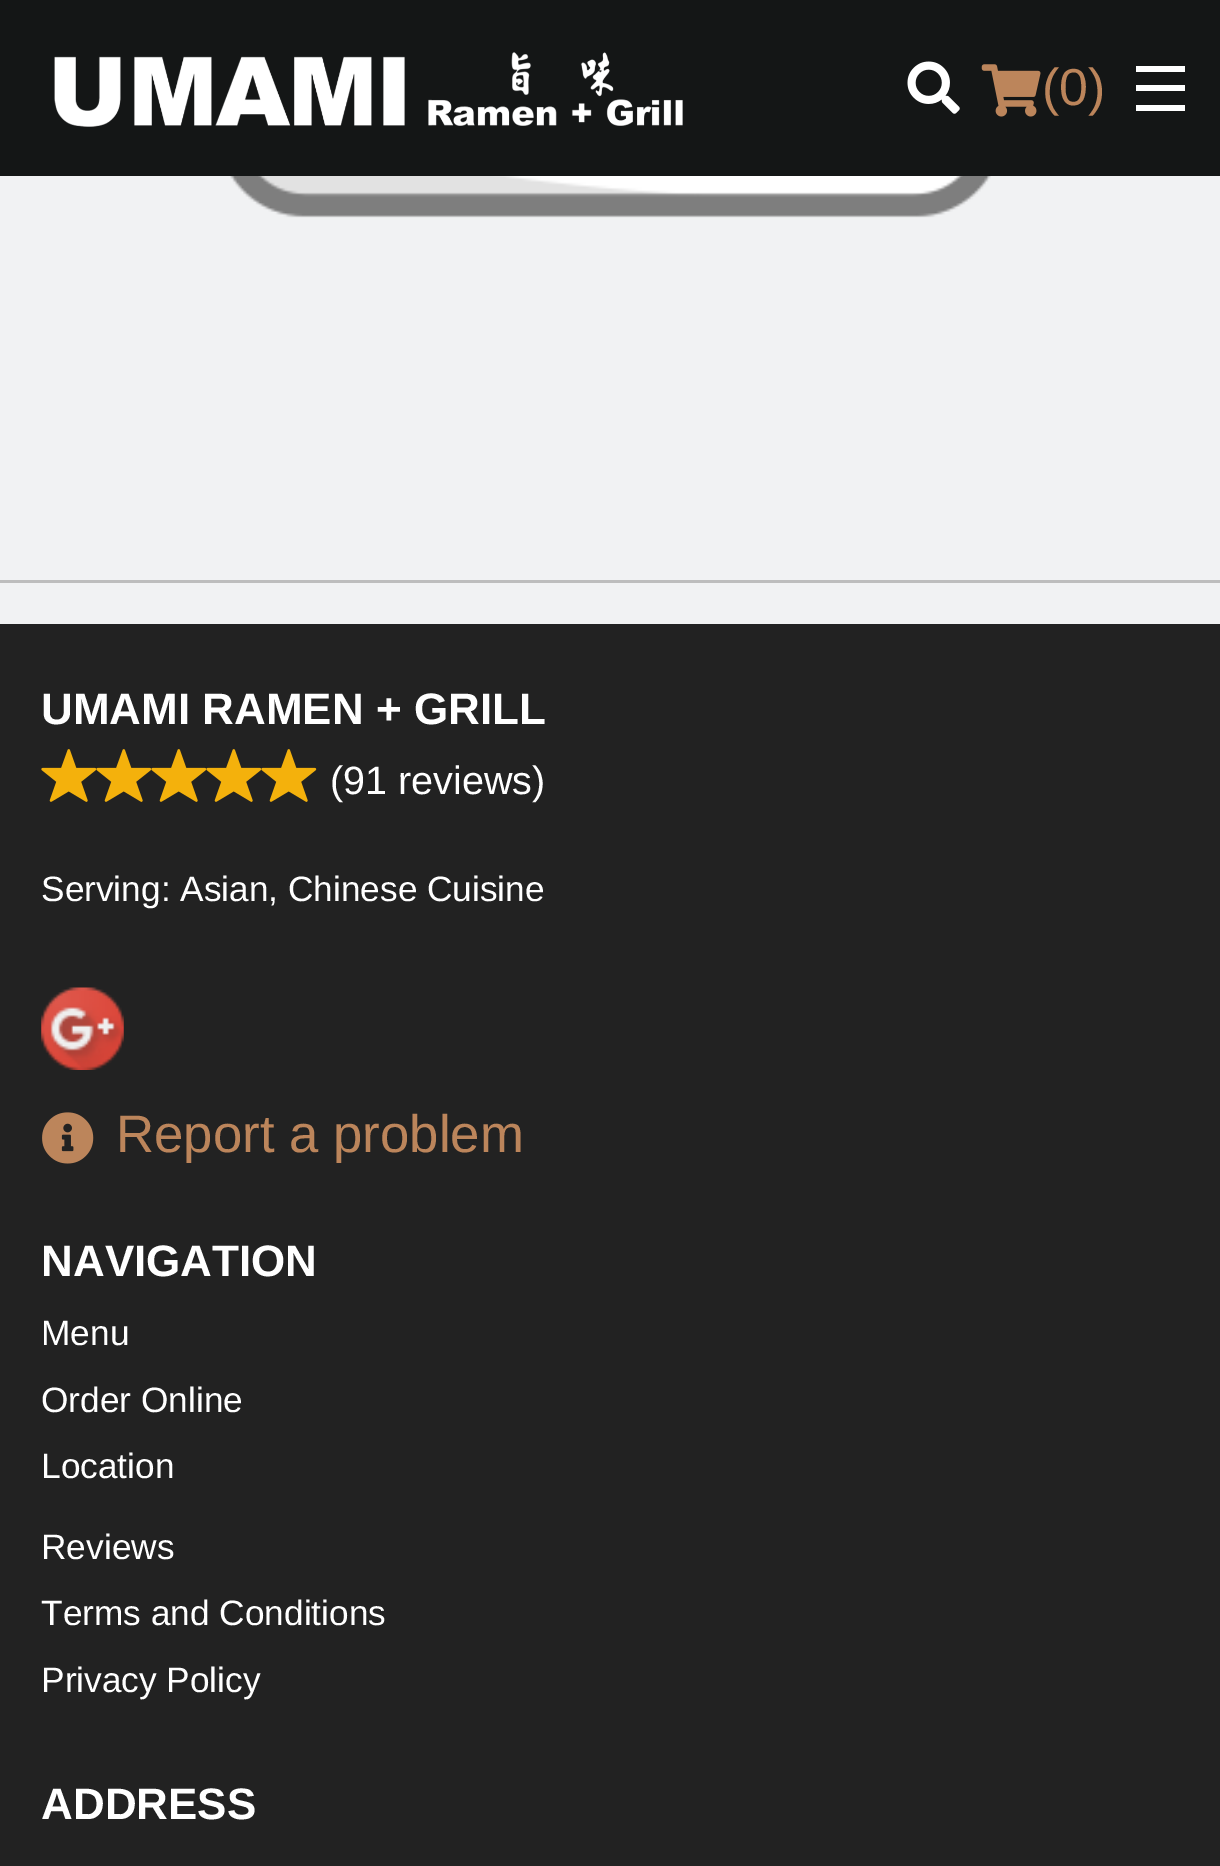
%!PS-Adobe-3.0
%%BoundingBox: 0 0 1220 1866
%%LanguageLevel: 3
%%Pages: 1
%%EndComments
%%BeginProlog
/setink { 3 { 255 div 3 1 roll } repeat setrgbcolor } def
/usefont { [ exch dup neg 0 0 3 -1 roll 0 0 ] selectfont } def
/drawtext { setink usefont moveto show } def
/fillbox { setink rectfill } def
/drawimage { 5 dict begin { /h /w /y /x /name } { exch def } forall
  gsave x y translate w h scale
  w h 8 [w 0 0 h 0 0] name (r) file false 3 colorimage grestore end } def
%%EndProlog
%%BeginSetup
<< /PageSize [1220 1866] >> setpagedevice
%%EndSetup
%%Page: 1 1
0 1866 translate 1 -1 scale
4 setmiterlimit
0 0 1220 1866 241 242 243 fillbox
0 0 1220 176 20 22 22 fillbox
(assets/img1.rgb) 54 52 629 75 drawimage
(assets/img2.rgb) 907 61 53 53 drawimage
(assets/img3.rgb) 981 64 60 53 drawimage
(\(0\)) 1042 105 /LiberationSans-Regular 52 188 133 91 drawtext
1136 105 49 6 255 255 255 fillbox
1136 85 49 6 255 255 255 fillbox
1136 66 49 6 255 255 255 fillbox
0 580 1220 3 189 189 189 fillbox
(assets/img4.rgb) 230 176 761 42 drawimage
0 624 1220 1242 34 34 34 fillbox
(UMAMI RAMEN + GRILL) 41 724 /LiberationSans-Bold 44 255 255 255 drawtext
(assets/img5.rgb) 41 749 56 53 drawimage
(assets/img6.rgb) 96 749 56 53 drawimage
(assets/img6.rgb) 151 749 56 53 drawimage
(assets/img6.rgb) 206 749 56 53 drawimage
(assets/img6.rgb) 261 749 56 53 drawimage
(\(91 reviews\)) 330 794 /LiberationSans-Regular 39.5 255 255 255 drawtext
(Serving: Asian, Chinese Cuisine) 41 901 /LiberationSans-Regular 35.25 255 255 255 drawtext
(assets/img7.rgb) 41 987 83 83 drawimage
(assets/img8.rgb) 42 1112 52 52 drawimage
(Report a problem) 116 1152 /LiberationSans-Regular 52.75 188 133 91 drawtext
(NAVIGATION) 41 1276 /LiberationSans-Bold 44 255 255 255 drawtext
(Menu) 41 1345 /LiberationSans-Regular 35.25 255 255 255 drawtext
(Order Online) 41 1412 /LiberationSans-Regular 35.25 255 255 255 drawtext
(Location) 41 1478 /LiberationSans-Regular 35.25 255 255 255 drawtext
(Reviews) 41 1559 /LiberationSans-Regular 35.25 255 255 255 drawtext
(Terms and Conditions) 41 1625 /LiberationSans-Regular 35.25 255 255 255 drawtext
(Privacy Policy) 41 1692 /LiberationSans-Regular 35.25 255 255 255 drawtext
(ADDRESS) 41 1819 /LiberationSans-Bold 44 255 255 255 drawtext
showpage
%%EOF
